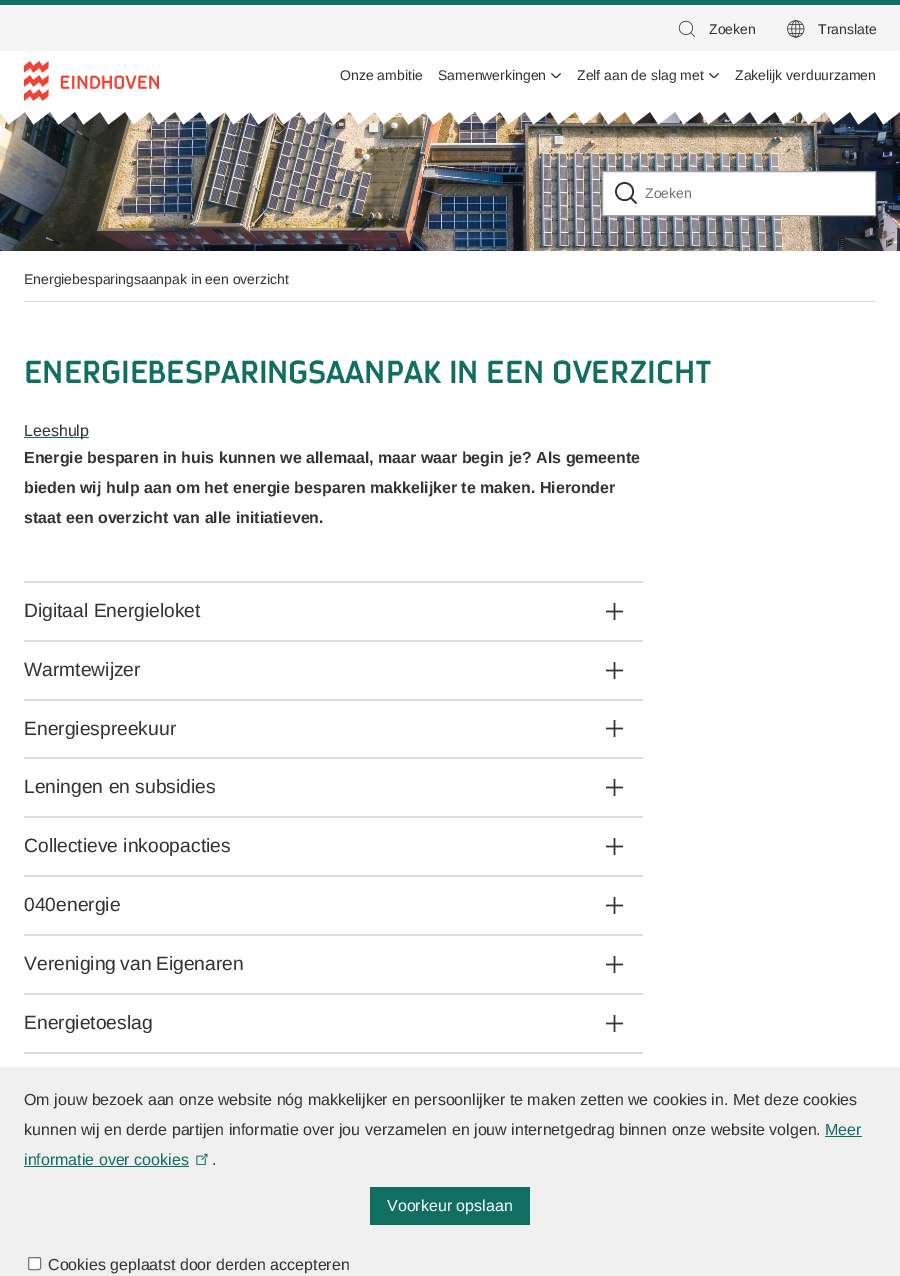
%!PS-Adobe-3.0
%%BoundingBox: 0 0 900 1276
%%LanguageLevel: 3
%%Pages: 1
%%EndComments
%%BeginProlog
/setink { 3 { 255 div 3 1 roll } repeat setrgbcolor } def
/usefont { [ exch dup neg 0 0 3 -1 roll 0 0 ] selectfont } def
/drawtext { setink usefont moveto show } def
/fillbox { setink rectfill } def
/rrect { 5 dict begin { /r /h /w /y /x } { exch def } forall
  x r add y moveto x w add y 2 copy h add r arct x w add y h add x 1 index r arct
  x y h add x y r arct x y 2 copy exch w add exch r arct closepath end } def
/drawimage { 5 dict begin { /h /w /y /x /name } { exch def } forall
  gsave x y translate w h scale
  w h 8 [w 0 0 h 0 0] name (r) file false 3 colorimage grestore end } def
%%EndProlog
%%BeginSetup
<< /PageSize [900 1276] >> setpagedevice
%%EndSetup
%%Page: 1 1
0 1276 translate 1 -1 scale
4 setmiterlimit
0 0 900 1276 255 255 255 fillbox
0 0 900 5 16 111 98 fillbox
0 5 900 46 245 245 245 fillbox
(assets/img1.rgb) 678 20 17 17 drawimage
(Zoeken) 709 34 /LiberationSans-Regular 14 51 51 51 drawtext
(assets/img2.rgb) 787 20 18 18 drawimage
(Translate) 818 34 /LiberationSans-Regular 14 51 51 51 drawtext
(assets/img3.rgb) 24 61 135 40 drawimage
(Onze ambitie) 340 80 /LiberationSans-Regular 14 51 51 51 drawtext
(Samenwerkingen) 438 80 /LiberationSans-Regular 14 51 51 51 drawtext
(assets/img4.rgb) 551 73 10 5 drawimage
(Zelf aan de slag met) 577 80 /LiberationSans-Regular 14 51 51 51 drawtext
(assets/img4.rgb) 709 73 10 5 drawimage
(Zakelijk verduurzamen) 735 80 /LiberationSans-Regular 14 51 51 51 drawtext
(assets/img7.rgb) 0 112 900 139 drawimage
(assets/img5.rgb) 0 111 900 18 drawimage
0 1067 900 209 240 240 240 fillbox
(Om jouw bezoek aan onze website nóg makkelijker en persoonlijker te maken zetten we cookies in. Met deze cookies) 24 1105 /LiberationSans-Regular 16 51 51 51 drawtext
(kunnen wij en derde partijen informatie over jou verzamelen en jouw internetgedrag binnen onze website volgen.) 24 1135 /LiberationSans-Regular 16 51 51 51 drawtext
(Meer) 825 1135 /LiberationSans-Regular 16 16 111 98 drawtext
825 1136 37 1 16 111 98 fillbox
(informatie over cookies) 24 1165 /LiberationSans-Regular 16 16 111 98 drawtext
24 1166 165 1 16 111 98 fillbox
(assets/img6.rgb) 196 1153 12 12 drawimage
(.) 212 1165 /LiberationSans-Regular 16 51 51 51 drawtext
370 1187 160 38 16 111 98 fillbox
(Voorkeur opslaan) 387 1211 /LiberationSans-Regular 16 255 255 255 drawtext
28.5 1257.5 12 12 1.5 rrect gsave fill grestore
118 118 118 setink
stroke
(Cookies geplaatst door derden accepteren) 48 1270 /LiberationSans-Regular 16 51 51 51 drawtext
255 255 255 setink
602.5 171.5 moveto 875.5 171.5 lineto 875.5 215.5 lineto 602.5 215.5 lineto closepath gsave fill grestore
164 164 164 setink
stroke
(assets/img8.rgb) 615 182 22 22 drawimage
(Zoeken) 645 198 /LiberationSans-Regular 14 115 115 115 drawtext
24 301 852 1 219 219 219 fillbox
(Energiebesparingsaanpak in een overzicht) 24 284 /LiberationSans-Regular 14 51 51 51 drawtext
/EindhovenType-Regular 32 usefont
16 111 98 setink
24 383 moveto -1 0 32 (Energiebesparingsaanpak in een overzicht) widthshow
24 437 65 1 16 111 98 fillbox
(Leeshulp) 24 436 /LiberationSans-Regular 16 51 51 51 drawtext
(Energie besparen in huis kunnen we allemaal, maar waar begin je? Als gemeente) 24 463 /LiberationSans-Bold 16 51 51 51 drawtext
(bieden wij hulp aan om het energie besparen makkelijker te maken. Hieronder) 24 493 /LiberationSans-Bold 16 51 51 51 drawtext
(staat een overzicht van alle initiatieven.) 24 523 /LiberationSans-Bold 16 51 51 51 drawtext
24 581 619 2 219 219 219 fillbox
24 640 619 2 219 219 219 fillbox
(Digitaal Energieloket) 24 617 /LiberationSans-Regular 19.25 51 51 51 drawtext
(assets/img9.rgb) 606 603 17 17 drawimage
24 699 619 2 219 219 219 fillbox
(Warmtewijzer) 24 676 /LiberationSans-Regular 19.25 51 51 51 drawtext
(assets/img9.rgb) 606 662 17 17 drawimage
24 757 619 2 219 219 219 fillbox
(Energiespreekuur) 24 735 /LiberationSans-Regular 19.25 51 51 51 drawtext
(assets/img9.rgb) 606 720 17 17 drawimage
24 816 619 2 219 219 219 fillbox
(Leningen en subsidies) 24 793 /LiberationSans-Regular 19.25 51 51 51 drawtext
(assets/img9.rgb) 606 779 17 17 drawimage
24 875 619 2 219 219 219 fillbox
(Collectieve inkoopacties) 24 852 /LiberationSans-Regular 19.25 51 51 51 drawtext
(assets/img9.rgb) 606 838 17 17 drawimage
24 934 619 2 219 219 219 fillbox
(040energie) 24 911 /LiberationSans-Regular 19.25 51 51 51 drawtext
(assets/img9.rgb) 606 897 17 17 drawimage
24 993 619 2 219 219 219 fillbox
51 51 51 setink
24 970 moveto -1 0 32 (Vereniging van Eigenaren) widthshow
(assets/img9.rgb) 606 956 17 17 drawimage
24 1052 619 2 219 219 219 fillbox
(Energietoeslag) 24 1029 /LiberationSans-Regular 19.25 51 51 51 drawtext
(assets/img9.rgb) 606 1015 17 17 drawimage
showpage
%%EOF
